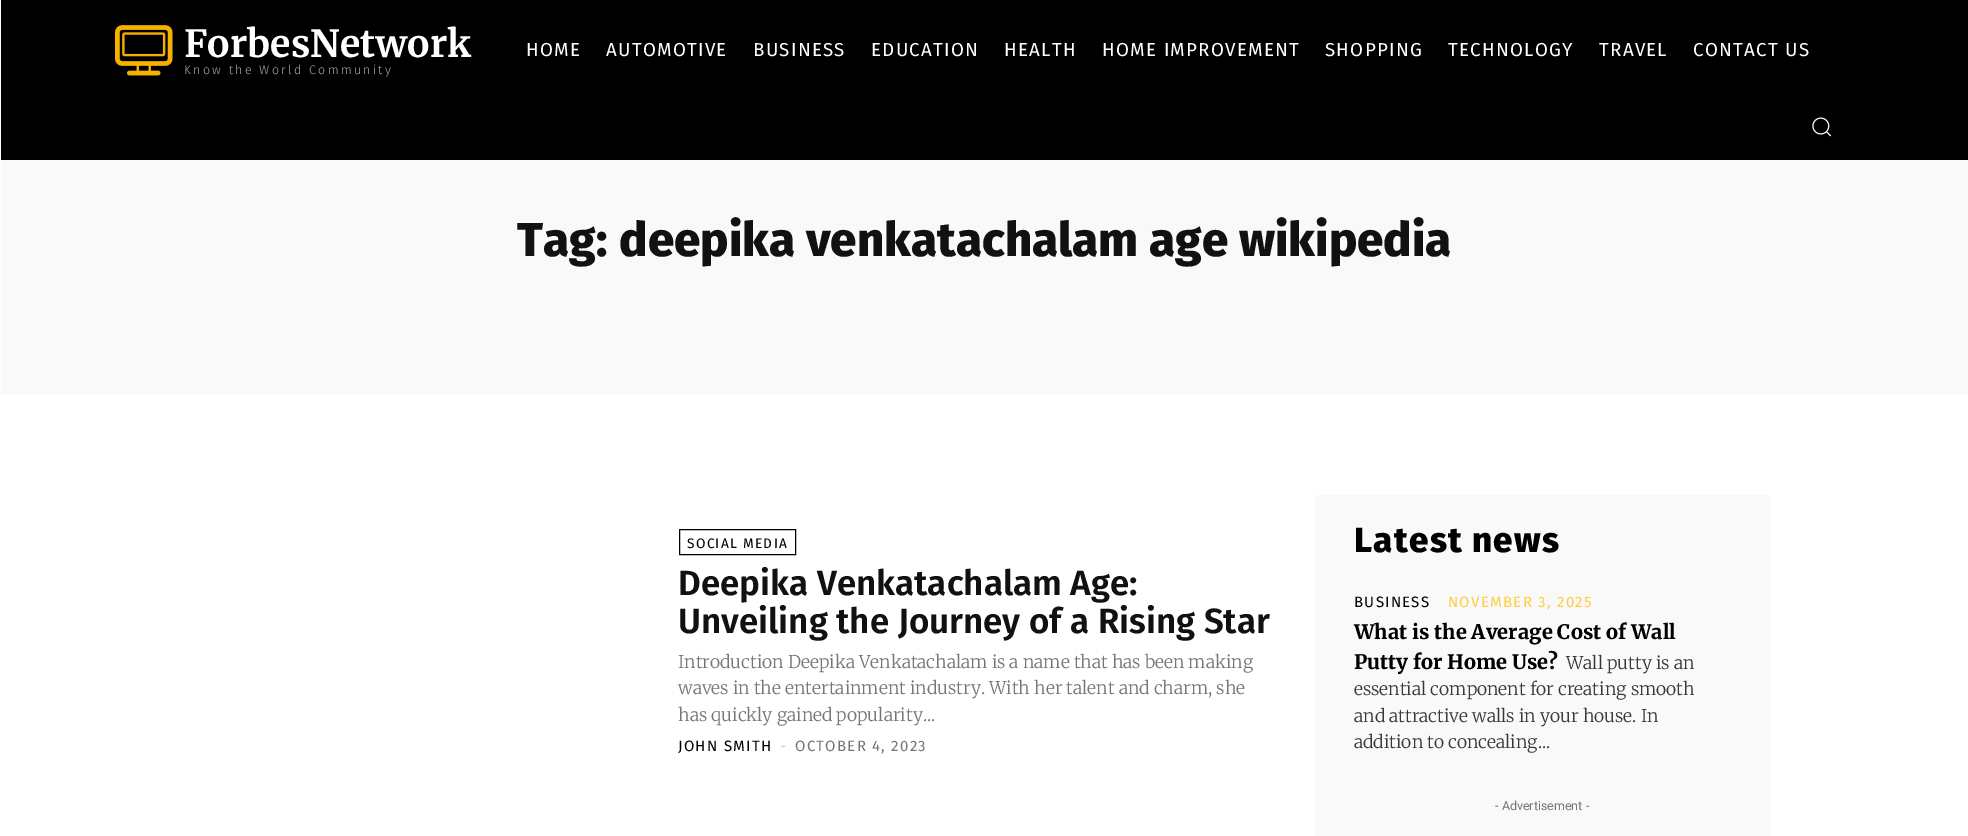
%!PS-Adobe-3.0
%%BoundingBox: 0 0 1968 836
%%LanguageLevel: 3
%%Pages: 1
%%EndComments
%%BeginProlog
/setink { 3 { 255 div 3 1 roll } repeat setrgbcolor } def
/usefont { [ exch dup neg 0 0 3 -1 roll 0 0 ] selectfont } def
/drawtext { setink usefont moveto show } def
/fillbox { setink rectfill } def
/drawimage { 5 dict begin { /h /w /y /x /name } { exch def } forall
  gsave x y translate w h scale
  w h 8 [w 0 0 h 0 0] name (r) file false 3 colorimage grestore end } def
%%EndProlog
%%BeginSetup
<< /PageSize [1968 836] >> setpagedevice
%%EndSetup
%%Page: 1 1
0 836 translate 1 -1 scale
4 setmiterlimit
0 0 1968 836 255 255 255 fillbox
1 0 1967 160 0 0 0 fillbox
(assets/img1.rgb) 115 25 58 51 drawimage
(ForbesNetwork) 184 57 /Merriweather-Bold 37.5 255 255 255 drawtext
/FiraSans-Light 12.5 usefont
170 170 170 setink
184 74 moveto 2.25 0 (Know the World Community) ashow
/FiraSans-Regular 18.75 usefont
255 255 255 setink
526 56 moveto 1.25 0 (HOME) ashow
606 56 moveto 1.25 0 (AUTOMOTIVE) ashow
753 56 moveto 1.25 0 (BUSINESS) ashow
871 56 moveto 1.25 0 (EDUCATION) ashow
1004 56 moveto 1.25 0 (HEALTH) ashow
1102 56 moveto 1.25 0 (HOME IMPROVEMENT) ashow
1325 56 moveto 1.25 0 (SHOPPING) ashow
1448 56 moveto 1.25 0 (TECHNOLOGY) ashow
1599 56 moveto 1.25 0 (TRAVEL) ashow
1693 56 moveto 1.25 0 (CONTACT US) ashow
(assets/img2.rgb) 1812 117 20 20 drawimage
1 160 1967 235 249 249 249 fillbox
(Tag:) 517 256 /FiraSans-ExtraBold 47.5 17 17 17 drawtext
(deepika venkatachalam age wikipedia) 619 256 /FiraSans-ExtraBold 47.5 17 17 17 drawtext
0 0 0 setink
679.5 529.5 116 25 rectstroke
/FiraSans-Regular 13.75 usefont
687 548 moveto 1.25 0 (SOCIAL MEDIA) ashow
(Deepika Venkatachalam Age:) 678 595 /FiraSans-SemiBold 35 17 17 17 drawtext
(Unveiling the Journey of a Rising Star) 678 633 /FiraSans-SemiBold 35 17 17 17 drawtext
(Introduction Deepika Venkatachalam is a name that has been making) 678 668 /Merriweather-Light 17.5 118 118 118 drawtext
(waves in the entertainment industry. With her talent and charm, she) 678 694 /Merriweather-Light 17.5 118 118 118 drawtext
(has quickly gained popularity...) 678 721 /Merriweather-Light 17.5 118 118 118 drawtext
/FiraSans-Regular 15 usefont
0 0 0 setink
678 751 moveto 1.25 0 (JOHN SMITH) ashow
204 204 204 setink
780 751 moveto 1.25 0 (-) ashow
118 118 118 setink
795 751 moveto 1.25 0 (OCTOBER 4, 2023) ashow
1315 495 455 341 249 249 249 fillbox
/FiraSans-ExtraBold 35 usefont
0 0 0 setink
1354 552 moveto 1.25 0 (Latest news) ashow
/FiraSans-Regular 15 usefont
1354 607 moveto 1.25 0 (BUSINESS) ashow
255 205 63 setink
1448 607 moveto 1.25 0 (NOVEMBER 3, 2025) ashow
(What is the Average Cost of Wall) 1354 639 /Merriweather-ExtraBold 20 0 0 0 drawtext
(Putty for Home Use?) 1354 669 /Merriweather-ExtraBold 20 0 0 0 drawtext
(Wall putty is an) 1566 669 /Merriweather-Light 17.5 56 56 56 drawtext
(essential component for creating smooth) 1354 695 /Merriweather-Light 17.5 56 56 56 drawtext
(and attractive walls in your house. In) 1354 722 /Merriweather-Light 17.5 56 56 56 drawtext
(addition to concealing...) 1354 748 /Merriweather-Light 17.5 56 56 56 drawtext
(- Advertisement -) 1495 810 /Roboto-Regular 12.5 118 118 118 drawtext
showpage
%%EOF
